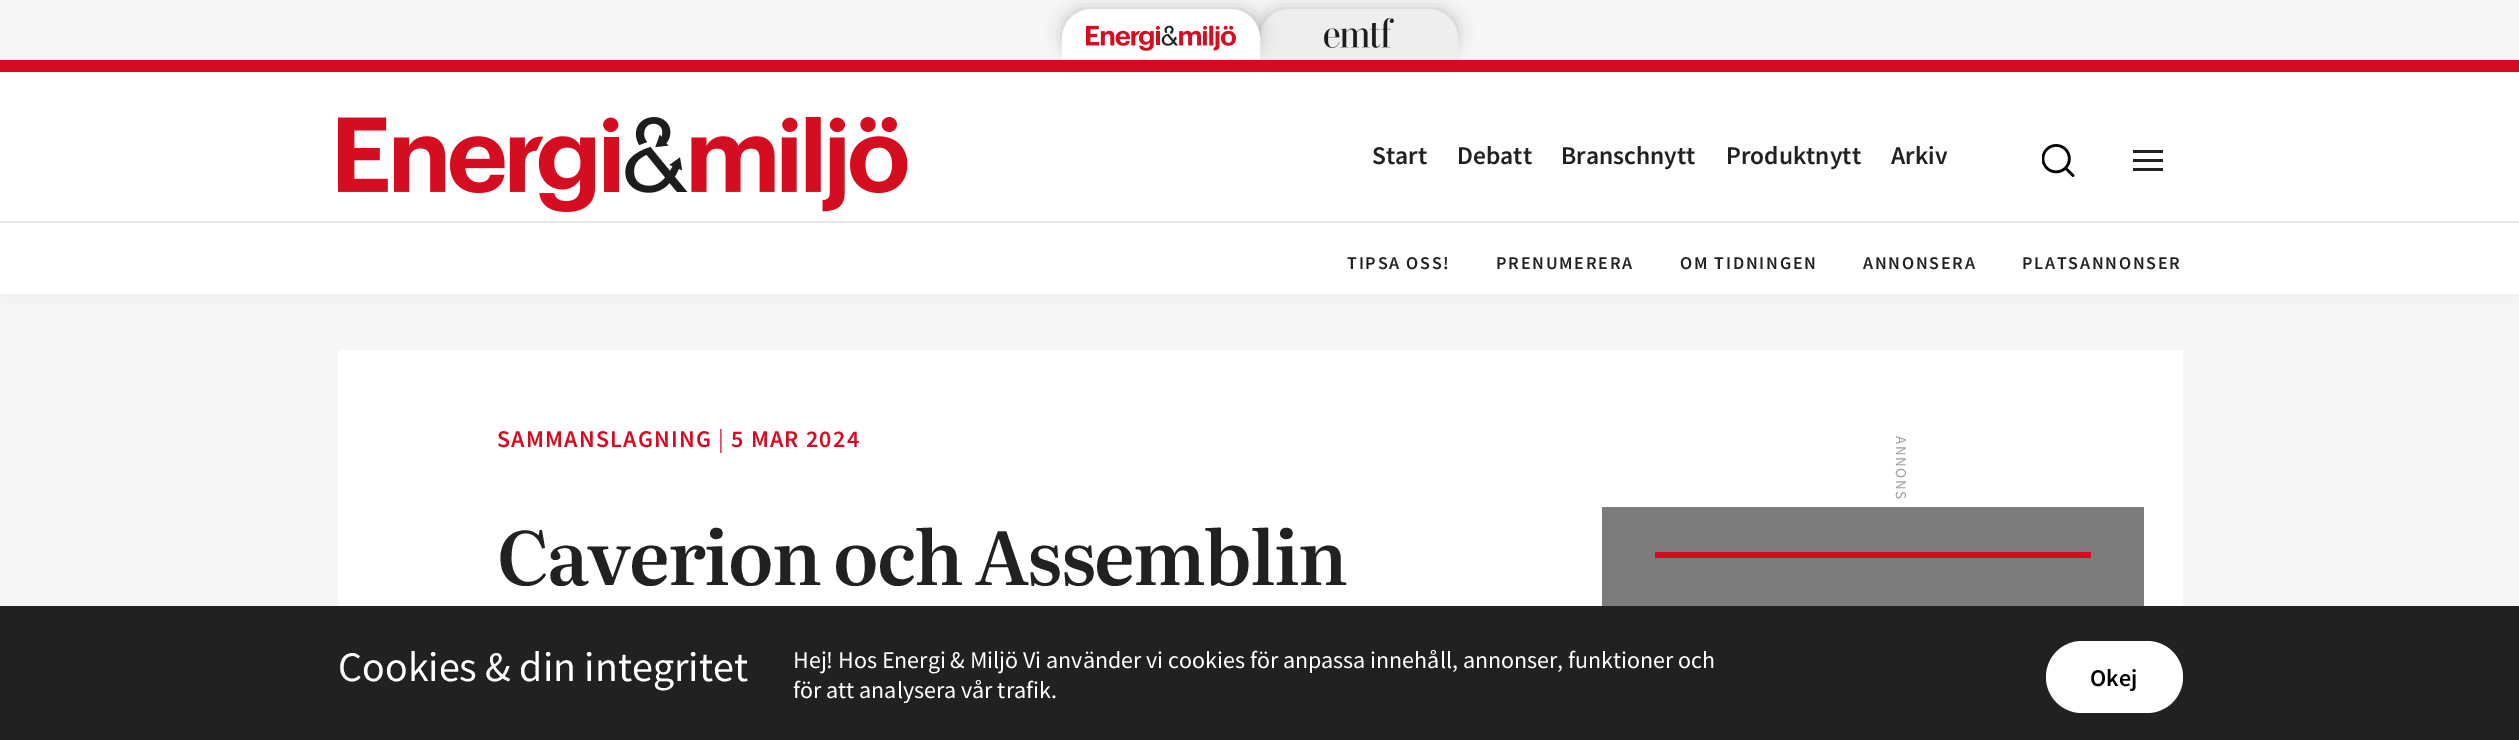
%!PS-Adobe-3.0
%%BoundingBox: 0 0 2519 740
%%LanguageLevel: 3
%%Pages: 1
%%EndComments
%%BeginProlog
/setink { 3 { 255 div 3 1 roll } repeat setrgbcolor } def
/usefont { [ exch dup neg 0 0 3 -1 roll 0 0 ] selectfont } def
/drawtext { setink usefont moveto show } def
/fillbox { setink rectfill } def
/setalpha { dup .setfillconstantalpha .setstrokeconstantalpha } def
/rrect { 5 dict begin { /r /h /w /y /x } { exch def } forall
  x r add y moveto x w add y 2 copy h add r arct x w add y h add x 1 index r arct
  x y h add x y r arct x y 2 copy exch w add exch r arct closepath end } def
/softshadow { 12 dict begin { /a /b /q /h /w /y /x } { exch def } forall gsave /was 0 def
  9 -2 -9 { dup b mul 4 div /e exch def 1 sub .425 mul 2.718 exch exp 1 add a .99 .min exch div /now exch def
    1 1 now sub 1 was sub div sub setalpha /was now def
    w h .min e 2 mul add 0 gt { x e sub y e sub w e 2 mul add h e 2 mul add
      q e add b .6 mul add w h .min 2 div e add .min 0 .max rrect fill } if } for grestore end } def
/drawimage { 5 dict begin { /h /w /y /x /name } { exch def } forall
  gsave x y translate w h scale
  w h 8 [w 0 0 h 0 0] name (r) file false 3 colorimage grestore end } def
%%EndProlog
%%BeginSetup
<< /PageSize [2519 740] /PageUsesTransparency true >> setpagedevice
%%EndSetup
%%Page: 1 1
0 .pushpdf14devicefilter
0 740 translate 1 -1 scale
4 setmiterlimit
0 0 2519 740 246 246 246 fillbox
236 236 236 setink
0 0 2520 294 0 13 1 softshadow
0 72 2519 222 255 255 255 fillbox
0 0 2519 60 246 246 246 fillbox
0 0 0 setink
1260 9 198 51 30 7.5 0.21 softshadow
238 238 238 setink
1290 10 moveto 1428 10 lineto 1444 10 1457 23 1457 39 curveto 1457 59 lineto 1261 59 lineto 1261 39 lineto 1261 23 1274 10 1290 10 curveto closepath gsave fill grestore
2 setlinewidth
stroke
0 0 0 setink
1062 9 198 51 30 7.5 0.21 softshadow
255 255 255 setink
1092 10 moveto 1230 10 lineto 1246 10 1259 23 1259 39 curveto 1259 59 lineto 1063 59 lineto 1063 39 lineto 1063 23 1076 10 1092 10 curveto closepath gsave fill grestore
stroke
(assets/img1.rgb) 1086 25 150 26 drawimage
(assets/img2.rgb) 1324 18 70 30 drawimage
0 60 2519 12 213 11 33 fillbox
0 221 2519 2 232 232 232 fillbox
(assets/img3.rgb) 338 117 570 95 drawimage
(Start) 1372 164 /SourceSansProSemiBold-SemiBold 25.5 33 33 33 drawtext
(Debatt) 1457 164 /SourceSansProSemiBold-SemiBold 25.5 33 33 33 drawtext
(Branschnytt) 1561 164 /SourceSansProSemiBold-SemiBold 25.5 33 33 33 drawtext
(Produktnytt) 1726 164 /SourceSansProSemiBold-SemiBold 25.5 33 33 33 drawtext
(Arkiv) 1891 164 /SourceSansProSemiBold-SemiBold 25.5 33 33 33 drawtext
(assets/img4.rgb) 2042 144 33 33 drawimage
2133 150 30 3 33 33 33 fillbox
2133 159 30 3 33 33 33 fillbox
2133 168 30 3 33 33 33 fillbox
/SourceSansProSemiBold-SemiBold 18 usefont
1347 269 moveto 1.75 0 (TIPSA OSS!) ashow
1496 269 moveto 1.75 0 (PRENUMERERA) ashow
1680 269 moveto 1.75 0 (OM TIDNINGEN) ashow
1863 269 moveto 1.75 0 (ANNONSERA) ashow
2022 269 moveto 1.75 0 (PLATSANNONSER) ashow
338 350 1845 256 255 255 255 fillbox
/SourceSansProSemiBold-SemiBold 24 usefont
213 11 33 setink
497 447 moveto 1.25 0 (SAMMANSLAGNING) ashow
/SourceSansPro-Regular 24 usefont
718 447 moveto 1.25 0 (|) ashow
/SourceSansProSemiBold-SemiBold 24 usefont
731 447 moveto 1.25 0 (5 MAR 2024) ashow
/Literata-SemiBold 75 usefont
33 33 33 setink
497 585 moveto -1.9 0 (Caverion och Assemblin) ashow
/SourceSansPro-Regular 15 usefont
156 156 156 setink
gsave 1896 436 translate 90 rotate 0 0 moveto 1.5 0 (ANNONS) ashow grestore
1602 507 542 99 124 124 124 fillbox
1655 552 436 6 213 11 33 fillbox
0 606 2519 134 33 33 33 fillbox
(Cookies & din integritet) 338 681 /SourceSansPro-Regular 42 255 255 255 drawtext
(Hej! Hos Energi & Miljö Vi använder vi cookies för anpassa innehåll, annonser, funktioner och) 793 668 /SourceSansPro-Regular 24 255 255 255 drawtext
(för att analysera vår trafik.) 793 698 /SourceSansPro-Regular 24 255 255 255 drawtext
2046 641 137 72 36 rrect fill
(Okej) 2090 686 /SourceSansProSemiBold-SemiBold 24 0 0 0 drawtext
.poppdf14devicefilter showpage
%%EOF
